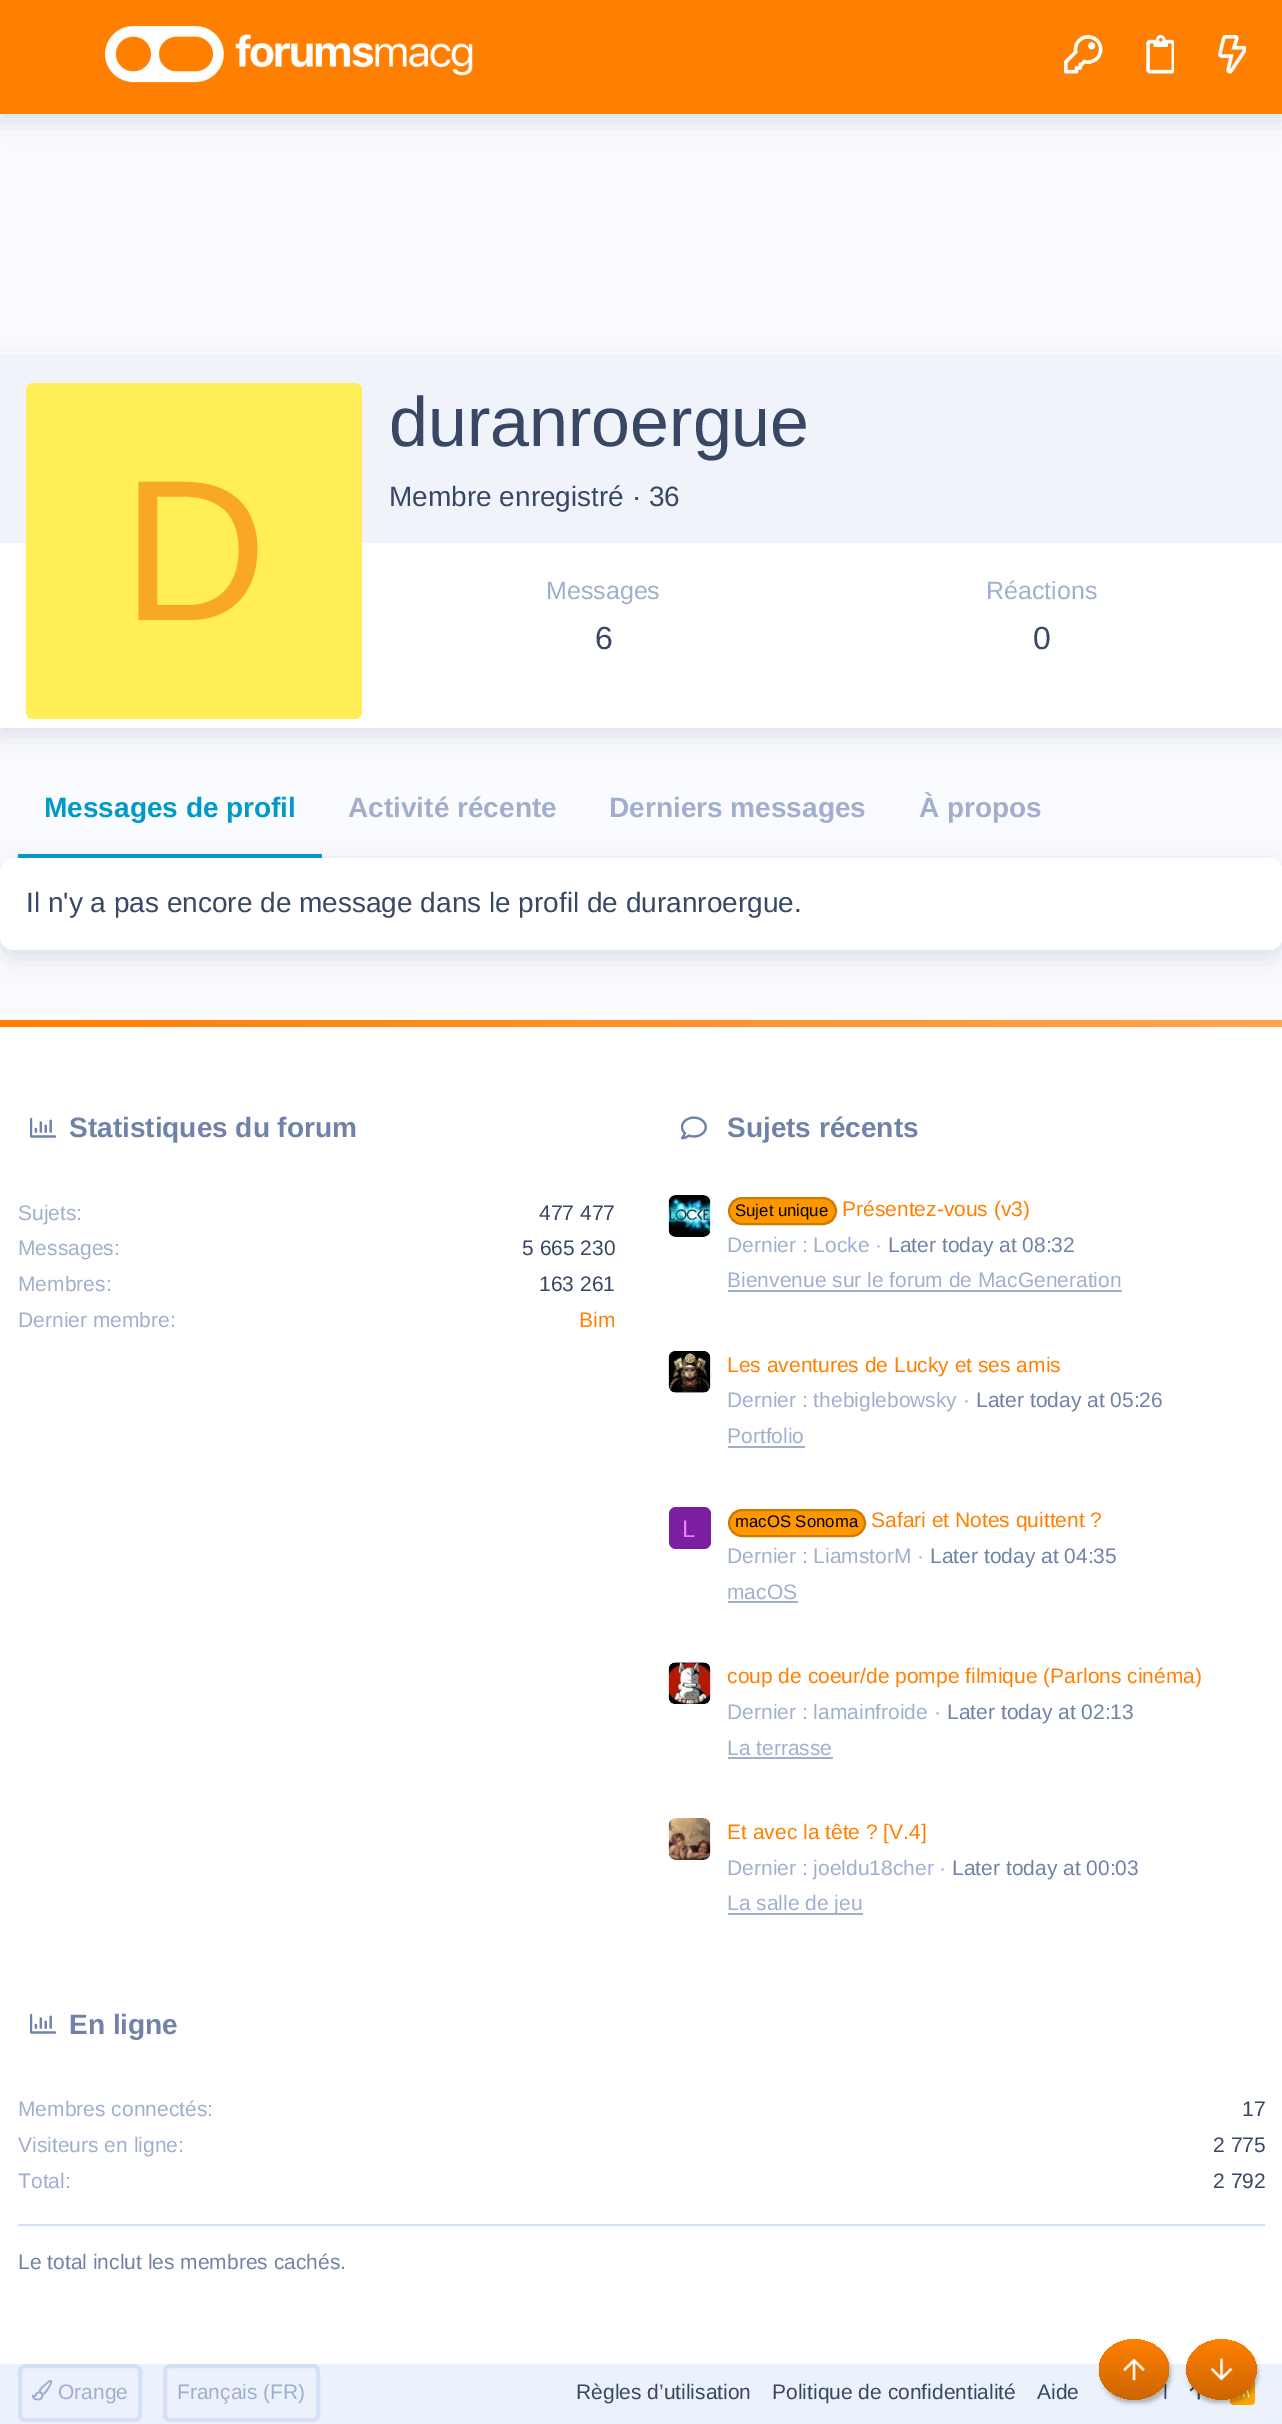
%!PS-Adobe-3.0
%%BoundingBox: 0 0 1282 2424
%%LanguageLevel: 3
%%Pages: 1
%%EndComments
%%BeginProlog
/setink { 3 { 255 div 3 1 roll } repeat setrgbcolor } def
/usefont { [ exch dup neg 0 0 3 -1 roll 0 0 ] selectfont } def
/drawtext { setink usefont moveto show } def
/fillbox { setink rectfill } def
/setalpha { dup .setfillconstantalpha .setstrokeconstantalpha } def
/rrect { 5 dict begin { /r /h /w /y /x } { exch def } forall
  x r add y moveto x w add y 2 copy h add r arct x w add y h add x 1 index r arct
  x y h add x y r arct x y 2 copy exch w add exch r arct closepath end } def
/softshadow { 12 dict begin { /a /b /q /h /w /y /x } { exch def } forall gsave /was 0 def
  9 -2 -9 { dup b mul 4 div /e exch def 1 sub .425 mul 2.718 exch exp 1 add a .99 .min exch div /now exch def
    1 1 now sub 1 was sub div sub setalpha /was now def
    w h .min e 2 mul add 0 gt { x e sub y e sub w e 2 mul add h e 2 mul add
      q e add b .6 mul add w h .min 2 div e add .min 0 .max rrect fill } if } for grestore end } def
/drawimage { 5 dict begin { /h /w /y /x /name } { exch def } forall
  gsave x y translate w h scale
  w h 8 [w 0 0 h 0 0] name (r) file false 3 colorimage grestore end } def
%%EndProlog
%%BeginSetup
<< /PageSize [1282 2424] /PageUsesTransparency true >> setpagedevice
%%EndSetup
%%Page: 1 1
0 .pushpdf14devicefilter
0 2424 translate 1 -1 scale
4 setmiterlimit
0 0 1282 2424 250 251 255 fillbox
89 102 153 setink
0 7 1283 114 0 13 0.2 softshadow
0 0 1282 114 255 127 0 fillbox
(assets/img1.rgb) 105 26 368 57 drawimage
(assets/img2.rgb) 1064 35 39 39 drawimage
(assets/img3.rgb) 1146 35 28 39 drawimage
(assets/img4.rgb) 1218 35 28 39 drawimage
89 102 153 setink
0 364 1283 371 0 13 0.2 softshadow
0 543 1282 185 255 255 255 fillbox
0 357 1282 186 241 243 251 fillbox
(duranroergue) 389 446 /LiberationSans-Regular 70 56 71 100 drawtext
(Membre enregistré · 36) 389 506 /LiberationSans-Regular 28 56 71 100 drawtext
255 238 88 setink
26 383 336 336 7 rrect fill
(D) 122 620 /LiberationSans-Regular 201 249 168 37 drawtext
(Messages) 546 599 /LiberationSans-Regular 25 160 175 206 drawtext
(6) 595 649 /LiberationSans-Regular 32 56 71 100 drawtext
(Réactions) 986 599 /LiberationSans-Regular 25 160 175 206 drawtext
(0) 1033 649 /LiberationSans-Regular 32 56 71 100 drawtext
89 102 153 setink
0 865 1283 92 14 13 0.2 softshadow
18 854 304 4 0 154 201 fillbox
(Messages de profil) 44 817 /LiberationSans-Bold 28 0 154 201 drawtext
(Activité récente) 348 817 /LiberationSans-Bold 28 160 175 206 drawtext
(Derniers messages) 609 817 /LiberationSans-Bold 28 160 175 206 drawtext
(À propos) 919 817 /LiberationSans-Bold 28 160 175 206 drawtext
255 255 255 setink
0 858 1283 92 14 rrect fill
(Il n'y a pas encore de message dans le profil de duranroergue.) 26 912 /LiberationSans-Regular 28 56 71 100 drawtext
0 2364 1282 60 236 242 251 fillbox
0 1027 1282 1337 255 255 255 fillbox
gsave 0 1020 moveto 1282 1020 lineto 1282 1027 lineto 0 1027 lineto closepath clip newpath
<< /ShadingType 2 /ColorSpace /DeviceRGB /Coords [0 1024 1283 1024] /Extend [true true] /Function << /FunctionType 2 /Domain [0 1] /C0 [1 0.498 0] /C1 [1 0.647 0.302] /N 1 >> >> shfill grestore
(assets/img5.rgb) 30 1118 26 20 drawimage
(Statistiques du forum) 69 1137 /LiberationSans-Bold 28 112 130 167 drawtext
(Sujets:) 18 1220 /LiberationSans-Regular 21 160 175 206 drawtext
(477 477) 539 1220 /LiberationSans-Regular 21 56 71 100 drawtext
(Messages:) 18 1255 /LiberationSans-Regular 21 160 175 206 drawtext
(5 665 230) 522 1255 /LiberationSans-Regular 21 56 71 100 drawtext
(Membres:) 18 1291 /LiberationSans-Regular 21 160 175 206 drawtext
(163 261) 539 1291 /LiberationSans-Regular 21 56 71 100 drawtext
(Dernier membre:) 18 1327 /LiberationSans-Regular 21 160 175 206 drawtext
(Bim) 579 1327 /LiberationSans-Regular 21 255 127 0 drawtext
(assets/img6.rgb) 681 1116 26 24 drawimage
(Sujets récents) 727 1137 /LiberationSans-Bold 28 112 130 167 drawtext
(assets/img7.rgb) 668 1195 43 42 drawimage
255 152 0 setink
729 1198 107 26 13 rrect gsave fill grestore
204 122 0 setink
2 setlinewidth
stroke
(Sujet unique) 735 1216 /LiberationSans-Regular 16.75 0 0 0 drawtext
(Présentez-vous \(v3\)) 842 1216 /LiberationSans-Regular 21 255 127 0 drawtext
(Dernier : Locke ·) 727 1252 /LiberationSans-Regular 21 160 175 206 drawtext
(Later today at 08:32) 888 1252 /LiberationSans-Regular 21 112 130 167 drawtext
(Bienvenue sur le forum de MacGeneration) 727 1287 /LiberationSans-Regular 21 160 175 206 drawtext
728 1290 394 2 160 175 206 fillbox
(assets/img8.rgb) 668 1351 43 42 drawimage
(Les aventures de Lucky et ses amis) 727 1372 /LiberationSans-Regular 21 255 127 0 drawtext
(Dernier : thebiglebowsky ·) 727 1407 /LiberationSans-Regular 21 160 175 206 drawtext
(Later today at 05:26) 976 1407 /LiberationSans-Regular 21 112 130 167 drawtext
(Portfolio) 727 1443 /LiberationSans-Regular 21 160 175 206 drawtext
728 1446 77 2 160 175 206 fillbox
123 31 162 setink
669 1507 42 42 7 rrect fill
(L) 682 1537 /LiberationSans-Regular 24 234 128 252 drawtext
255 152 0 setink
729 1510 136 26 13 rrect gsave fill grestore
204 122 0 setink
stroke
(macOS Sonoma) 735 1527 /LiberationSans-Regular 16.75 0 0 0 drawtext
(Safari et Notes quittent ?) 871 1527 /LiberationSans-Regular 21 255 127 0 drawtext
(Dernier : LiamstorM ·) 727 1563 /LiberationSans-Regular 21 160 175 206 drawtext
(Later today at 04:35) 930 1563 /LiberationSans-Regular 21 112 130 167 drawtext
(macOS) 727 1599 /LiberationSans-Regular 21 160 175 206 drawtext
728 1601 70 2 160 175 206 fillbox
(assets/img9.rgb) 668 1662 43 42 drawimage
(coup de coeur/de pompe filmique \(Parlons cinéma\)) 727 1683 /LiberationSans-Regular 21 255 127 0 drawtext
(Dernier : lamainfroide ·) 727 1719 /LiberationSans-Regular 21 160 175 206 drawtext
(Later today at 02:13) 947 1719 /LiberationSans-Regular 21 112 130 167 drawtext
(La terrasse) 727 1755 /LiberationSans-Regular 21 160 175 206 drawtext
728 1757 105 2 160 175 206 fillbox
(assets/img10.rgb) 668 1818 43 42 drawimage
(Et avec la tête ? [V.4]) 727 1839 /LiberationSans-Regular 21 255 127 0 drawtext
(Dernier : joeldu18cher ·) 727 1875 /LiberationSans-Regular 21 160 175 206 drawtext
(Later today at 00:03) 952 1875 /LiberationSans-Regular 21 112 130 167 drawtext
728 1913 135 2 160 175 206 fillbox
(La salle de jeu) 727 1910 /LiberationSans-Regular 21 160 175 206 drawtext
(assets/img5.rgb) 30 2014 26 20 drawimage
(En ligne) 69 2034 /LiberationSans-Bold 28 112 130 167 drawtext
(Membres connectés:) 18 2116 /LiberationSans-Regular 21 160 175 206 drawtext
(17) 1242 2116 /LiberationSans-Regular 21 56 71 100 drawtext
(Visiteurs en ligne:) 18 2152 /LiberationSans-Regular 21 160 175 206 drawtext
(2 775) 1213 2152 /LiberationSans-Regular 21 56 71 100 drawtext
(Total:) 18 2188 /LiberationSans-Regular 21 160 175 206 drawtext
(2 792) 1213 2188 /LiberationSans-Regular 21 56 71 100 drawtext
18 2224 1247 2 211 225 246 fillbox
(Le total inclut les membres cachés.) 18 2269 /LiberationSans-Regular 21 112 130 167 drawtext
211 225 246 setink
4 setlinewidth
20 2366 120 54 5 rrect stroke
(assets/img11.rgb) 31 2380 22 21 drawimage
(Orange) 58 2399 /LiberationSans-Regular 21 160 175 206 drawtext
211 225 246 setink
165 2366 153 54 5 rrect stroke
(Français \(FR\)) 177 2399 /LiberationSans-Regular 21 160 175 206 drawtext
(Règles d’utilisation) 576 2399 /LiberationSans-Regular 21 56 71 100 drawtext
(Politique de confidentialité) 772 2399 /LiberationSans-Regular 21 56 71 100 drawtext
(Aide) 1037 2399 /LiberationSans-Regular 21 56 71 100 drawtext
(l) 1163 2399 /LiberationSans-Regular 21 56 71 100 drawtext
(assets/img12.rgb) 1189 2386 11 14 drawimage
255 165 0 setink
1230 2380 25 25 4 rrect fill
(assets/img13.rgb) 1235 2389 15 9 drawimage
0 0 0 setink
1101 2343 70 60 30 2 0.25 softshadow
gsave 1134 2339.5 moveto 1153.5 2339.5 1169 2353 1169 2369.5 curveto 1169 2386 1153.5 2399.5 1134 2399.5 curveto 1114.5 2399.5 1099 2386 1099 2369.5 curveto 1099 2353 1114.5 2339.5 1134 2339.5 curveto closepath clip newpath
<< /ShadingType 2 /ColorSpace /DeviceRGB /Coords [1134 2340 1134 2399] /Extend [true true] /Function << /FunctionType 2 /Domain [0 1] /C0 [1 0.498 0] /C1 [0.8 0.4 0] /N 1 >> >> shfill grestore
(assets/img14.rgb) 1122 2358 23 23 drawimage
1188 2343 70 60 30 2 0.25 softshadow
gsave 1221.5 2339.5 moveto 1241 2339.5 1256.5 2353 1256.5 2369.5 curveto 1256.5 2386 1241 2399.5 1221.5 2399.5 curveto 1202 2399.5 1186.5 2386 1186.5 2369.5 curveto 1186.5 2353 1202 2339.5 1221.5 2339.5 curveto closepath clip newpath
<< /ShadingType 2 /ColorSpace /DeviceRGB /Coords [1222 2340 1222 2399] /Extend [true true] /Function << /FunctionType 2 /Domain [0 1] /C0 [1 0.498 0] /C1 [0.8 0.4 0] /N 1 >> >> shfill grestore
(assets/img15.rgb) 1210 2358 23 23 drawimage
.poppdf14devicefilter showpage
%%EOF
